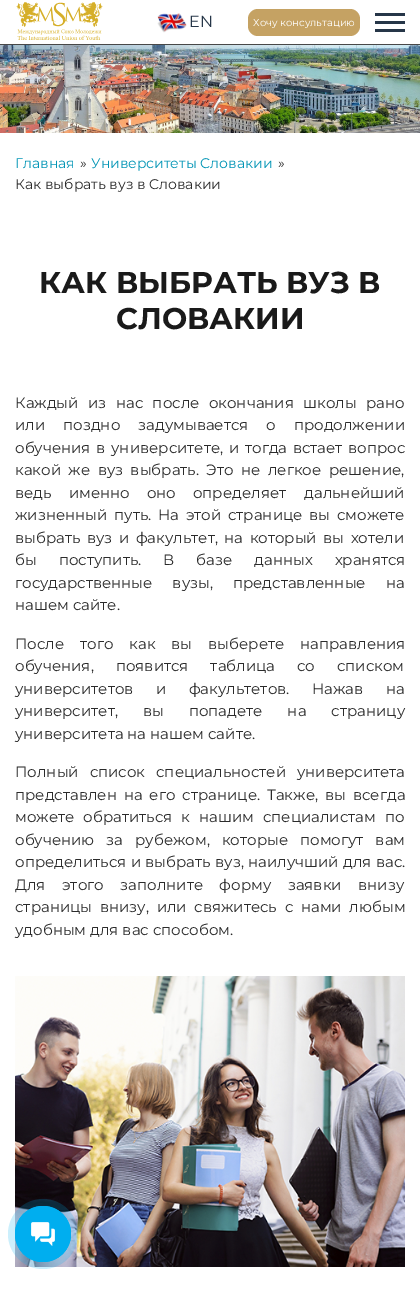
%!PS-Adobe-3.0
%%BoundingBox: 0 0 420 1289
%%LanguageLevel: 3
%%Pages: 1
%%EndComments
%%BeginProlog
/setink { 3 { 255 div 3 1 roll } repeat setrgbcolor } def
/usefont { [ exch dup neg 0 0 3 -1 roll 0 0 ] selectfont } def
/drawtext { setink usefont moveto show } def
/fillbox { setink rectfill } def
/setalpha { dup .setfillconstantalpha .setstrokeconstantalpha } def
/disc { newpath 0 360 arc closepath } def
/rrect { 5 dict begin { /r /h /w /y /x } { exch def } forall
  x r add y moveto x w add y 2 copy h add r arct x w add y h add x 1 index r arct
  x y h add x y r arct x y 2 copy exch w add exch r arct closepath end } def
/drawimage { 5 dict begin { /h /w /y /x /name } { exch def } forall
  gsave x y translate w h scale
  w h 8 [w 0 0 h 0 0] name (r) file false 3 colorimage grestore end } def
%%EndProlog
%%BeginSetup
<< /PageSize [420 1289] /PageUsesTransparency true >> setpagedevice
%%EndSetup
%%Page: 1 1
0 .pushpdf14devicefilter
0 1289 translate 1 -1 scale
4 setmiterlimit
0 0 420 1289 255 255 255 fillbox
0 44 420 1 72 72 72 fillbox
(assets/img1.rgb) 16 2 87 38 drawimage
(assets/img2.rgb) 157 13 30 20 drawimage
(EN) 189 27 /Montserrat-Regular 16 38 54 72 drawtext
197 162 99 setink
248 9 112 27 10 rrect fill
(Хочу консультацию) 253 26 /Montserrat-Regular 10 255 255 255 drawtext
375 13 30 3 38 54 72 fillbox
375 21 30 3 38 54 72 fillbox
375 29 30 3 38 54 72 fillbox
(assets/img3.rgb) 0 45 420 88 drawimage
(Главная) 15 168 /Montserrat-Regular 14 2 149 181 drawtext
(») 80 168 /Montserrat-Regular 14 43 43 43 drawtext
(Университеты Словакии) 91 168 /Montserrat-Regular 14 2 149 181 drawtext
(») 278 168 /Montserrat-Regular 14 43 43 43 drawtext
(Как выбрать вуз в Cловакии) 15 189 /Montserrat-Regular 14 43 43 43 drawtext
(КАК ВЫБРАТЬ ВУЗ В) 39 293 /Montserrat-Bold 30 26 26 26 drawtext
(СЛОВАКИИ) 116 329 /Montserrat-Bold 30 26 26 26 drawtext
/Montserrat-Regular 15 usefont
43 43 43 setink
15 408 moveto 5.5 0 32 (Каждый из нас после окончания школы рано) widthshow
15 430 moveto 14 0 32 (или поздно задумывается о продолжении) widthshow
15 453 moveto 1.75 0 32 (обучения в университете, и тогда встает вопрос) widthshow
15 475 moveto 3.5 0 32 (какой же вуз выбрать. Это не легкое решение,) widthshow
15 498 moveto 13 0 32 (ведь именно оно определяет) widthshow
(дальнейший) 304 498 /Montserrat-Regular 15 43 43 43 drawtext
15 520 moveto 2.75 0 32 (жизненный путь. На этой странице вы сможете) widthshow
(выбрать) 15 543 /Montserrat-Regular 15 43 43 43 drawtext
87 543 moveto 2.5 0 32 (вуз и факультет, на который вы хотели) widthshow
15 565 moveto 18 0 32 (бы поступить. В базе данных хранятся) widthshow
15 588 moveto 16 0 32 (государственные вузы, представленные на) widthshow
(нашем сайте.) 15 610 /Montserrat-Regular 15 43 43 43 drawtext
15 649 moveto 12 0 32 (После того как вы выберете направления) widthshow
15 671 moveto 18 0 32 (обучения, появится таблица со списком) widthshow
15 694 moveto 18.5 0 32 (университетов и факультетов. Нажав на) widthshow
15 716 moveto 21 0 32 (университет, вы попадете на страницу) widthshow
(университета на нашем сайте.) 15 739 /Montserrat-Regular 15 43 43 43 drawtext
15 777 moveto 7 0 32 (Полный список специальностей университета) widthshow
15 800 moveto 3 0 32 (представлен на его странице. Также, вы всегда) widthshow
15 822 moveto 5 0 32 (можете обратиться к нашим специалистам по) widthshow
15 845 moveto 8 0 32 (обучению за рубежом, которые помогут вам) widthshow
15 867 moveto 0.5 0 32 (определиться и выбрать вуз, наилучший для вас.) widthshow
15 890 moveto 12.5 0 32 (Для этого заполните форму заявки внизу) widthshow
15 912 moveto 3.75 0 32 (страницы внизу, или свяжитесь с нами любым) widthshow
(удобным для вас способом.) 15 935 /Montserrat-Regular 15 43 43 43 drawtext
(assets/img4.rgb) 15 976 390 291 drawimage
0.2 setalpha
0 174 239 setink
43 1234 35 disc fill
1 setalpha
0.8 setlinewidth
43 1234 27.6 disc stroke
43 1234 28 disc fill
(assets/img5.rgb) 31 1222 24 24 drawimage
.poppdf14devicefilter showpage
%%EOF
